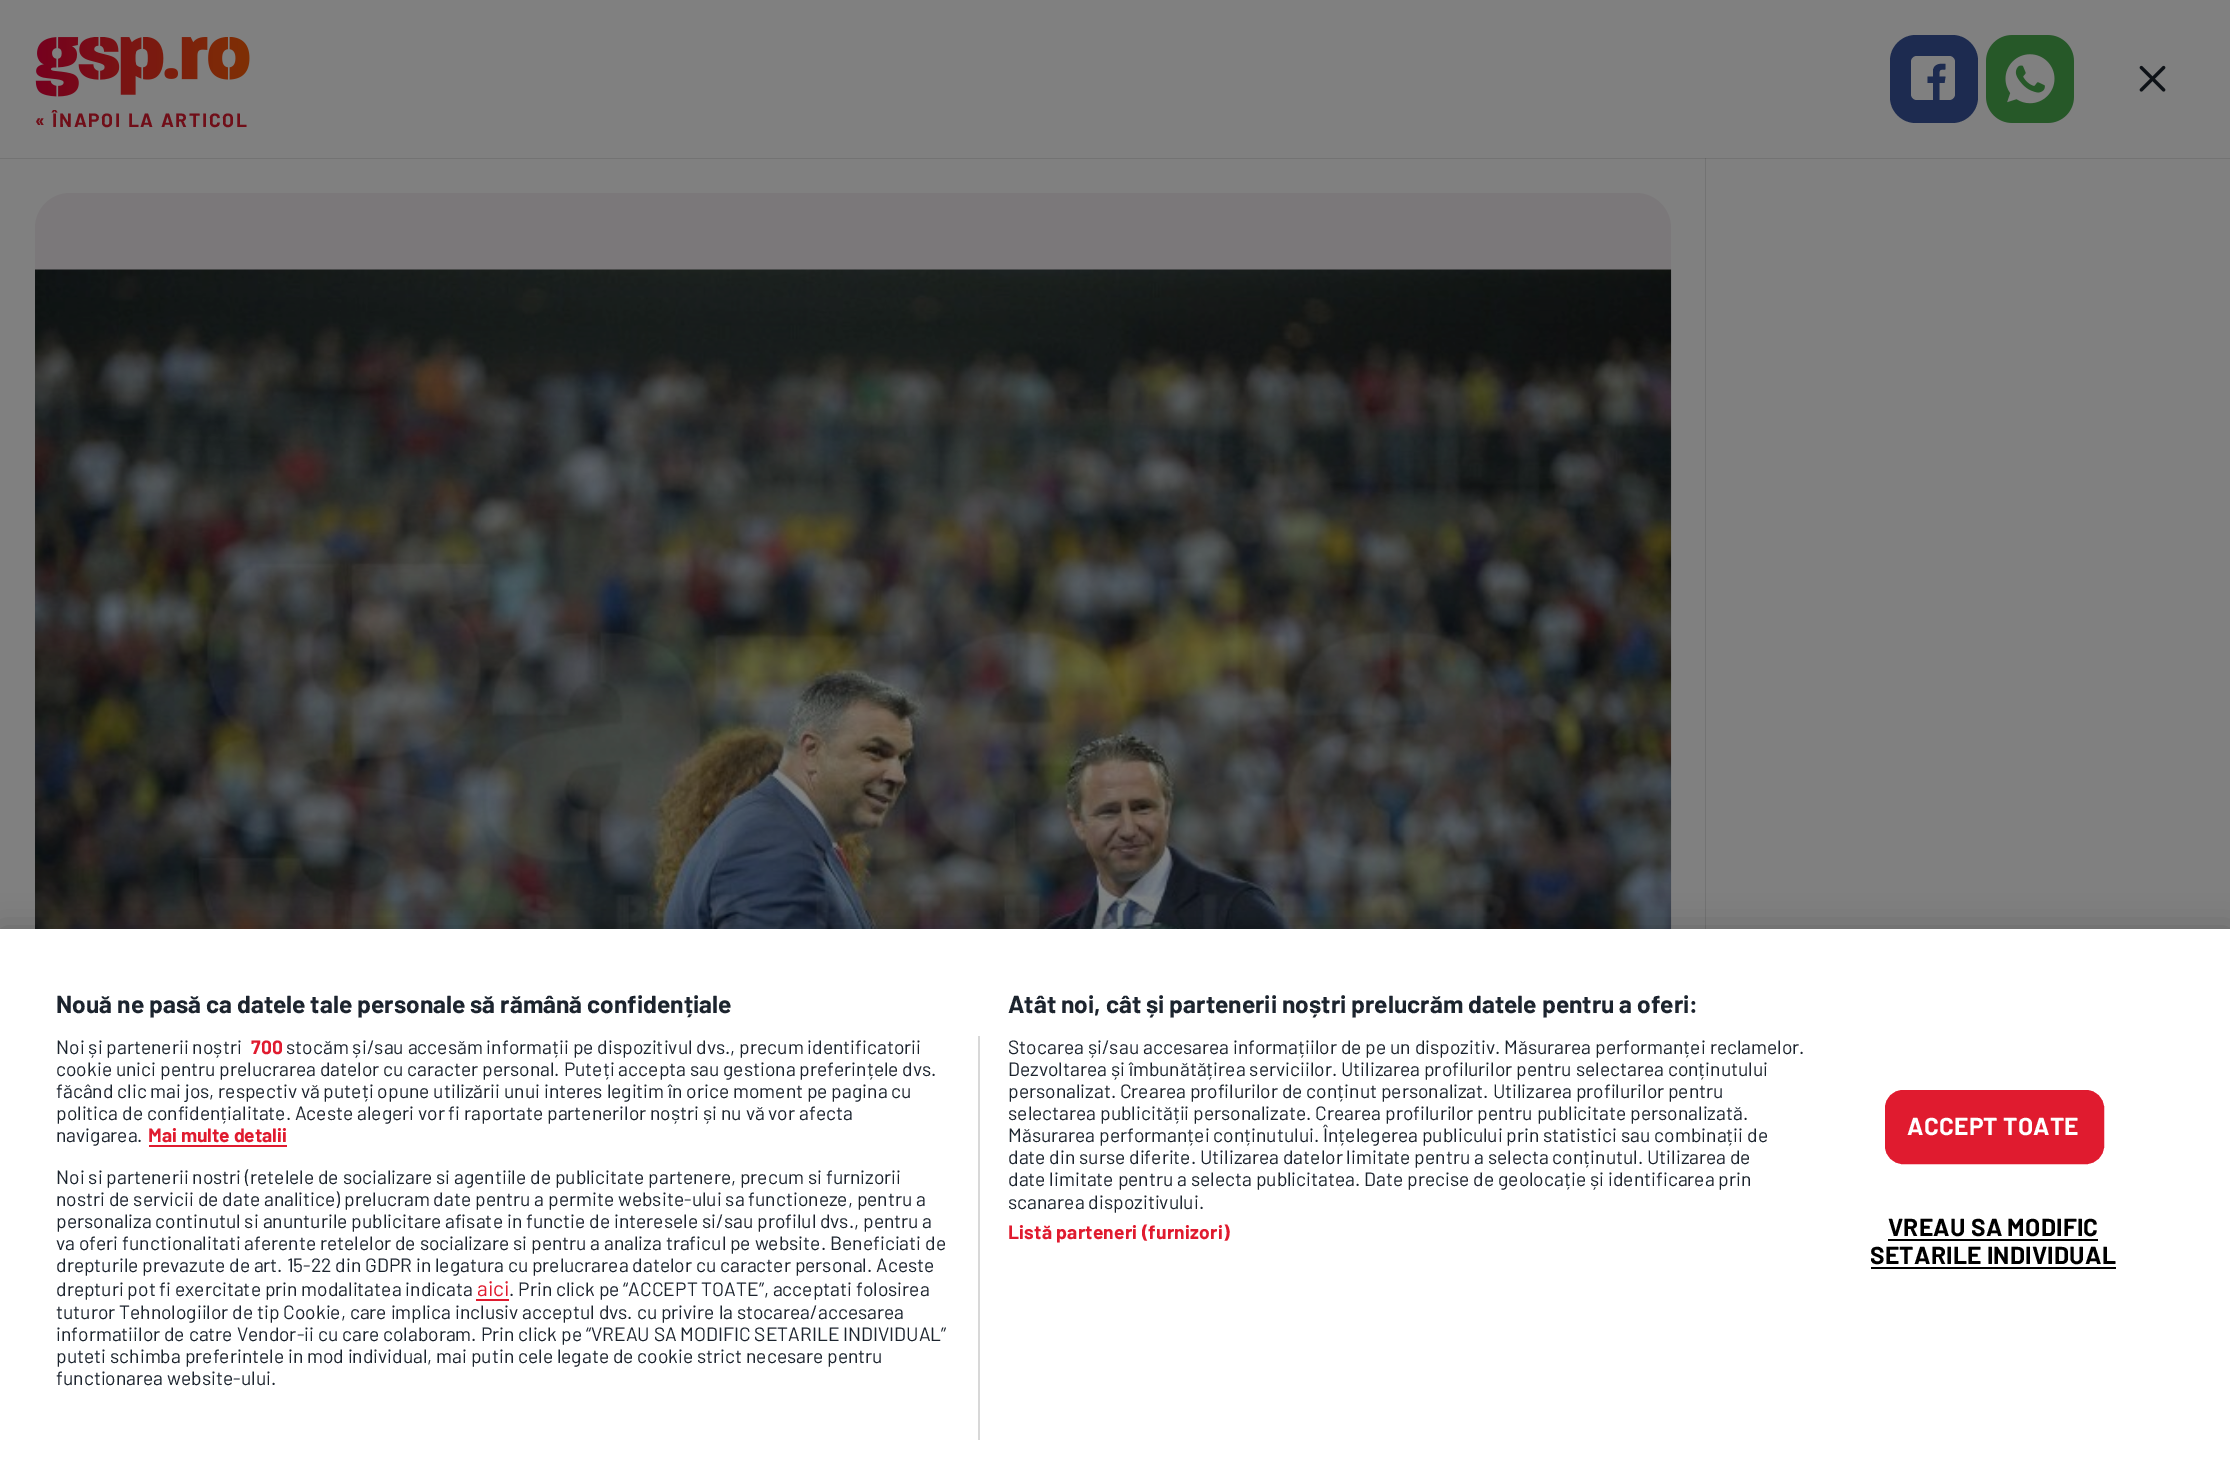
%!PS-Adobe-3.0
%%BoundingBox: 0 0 2230 1465
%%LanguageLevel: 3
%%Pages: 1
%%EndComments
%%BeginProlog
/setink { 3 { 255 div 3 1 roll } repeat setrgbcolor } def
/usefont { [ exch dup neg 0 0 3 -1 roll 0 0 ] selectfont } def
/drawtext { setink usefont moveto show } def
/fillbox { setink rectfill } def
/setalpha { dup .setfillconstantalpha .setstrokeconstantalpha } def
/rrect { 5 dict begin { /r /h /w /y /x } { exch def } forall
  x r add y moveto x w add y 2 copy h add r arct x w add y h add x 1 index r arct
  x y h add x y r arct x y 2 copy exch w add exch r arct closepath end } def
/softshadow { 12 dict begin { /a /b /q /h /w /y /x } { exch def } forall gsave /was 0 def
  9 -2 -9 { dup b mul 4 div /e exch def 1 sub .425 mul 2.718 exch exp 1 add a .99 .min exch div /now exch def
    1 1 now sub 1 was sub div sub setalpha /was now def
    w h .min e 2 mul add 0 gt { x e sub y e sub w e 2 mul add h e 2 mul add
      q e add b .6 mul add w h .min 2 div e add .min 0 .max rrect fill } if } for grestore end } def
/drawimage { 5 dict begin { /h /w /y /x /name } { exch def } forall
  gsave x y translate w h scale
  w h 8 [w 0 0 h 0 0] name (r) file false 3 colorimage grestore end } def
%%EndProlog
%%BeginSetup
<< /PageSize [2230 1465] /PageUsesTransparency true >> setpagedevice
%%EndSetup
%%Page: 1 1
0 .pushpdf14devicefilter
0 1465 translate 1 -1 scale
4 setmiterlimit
0 0 2230 1465 128 128 128 fillbox
0 158 2230 1 115 115 115 fillbox
(assets/img1.rgb) 35 37 215 60 drawimage
/Barlow-Bold 19.25 usefont
112 14 24 setink
35 127 moveto 1.75 0 (« ÎNAPOI LA ARTICOL) ashow
29 43 80 setink
1890 35 88 88 26 rrect fill
128 128 128 setink
1911 56 44 44 6 rrect fill
29 43 80 setink
1933 100 moveto 1933 83 lineto 1927.5 83 lineto 1927.5 76.5 lineto 1933 76.5 lineto 1933 70 lineto 1934.5 63.5 1940.5 63.5 1945.5 64 curveto 1945.5 69.5 lineto 1938.5 69.5 1939.5 70 1939.5 76.5 curveto 1945.5 76.5 lineto 1944.5 83 lineto 1939.5 83 lineto 1939.5 100 lineto closepath fill
(assets/img2.rgb) 1986 35 88 88 drawimage
(assets/img3.rgb) 2139 65 27 27 drawimage
123 120 122 setink
35 193 1636 1244 35 rrect fill
(assets/img4.rgb) 35 269 1637 660 drawimage
0.1 setalpha
0 0 0 setink
1705 158 moveto 1705 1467 lineto 2230 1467 lineto 2230 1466 lineto 1706 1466 lineto 1706 158 lineto closepath fill
1 setalpha
0 929 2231 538 0 16 0.2 softshadow
0 929 2230 536 255 255 255 fillbox
(Nouă ne pasă ca datele tale personale să rămână confidențiale) 56 1013 /Barlow-Bold 24.5 28 36 46 drawtext
(Atât noi, cât și partenerii noștri prelucrăm datele pentru a oferi:) 1008 1013 /Barlow-Bold 24.5 28 36 46 drawtext
(Stocarea și/sau accesarea informațiilor de pe un dispozitiv. Măsurarea performanței reclamelor.) 1008 1054 /Barlow-Regular 19.25 28 36 46 drawtext
(Dezvoltarea și îmbunătățirea serviciilor. Utilizarea profilurilor pentru selectarea conținutului) 1008 1076 /Barlow-Regular 19.25 28 36 46 drawtext
(personalizat. Crearea profilurilor de conținut personalizat. Utilizarea profilurilor pentru) 1008 1098 /Barlow-Regular 19.25 28 36 46 drawtext
(selectarea publicității personalizate. Crearea profilurilor pentru publicitate personalizată.) 1008 1120 /Barlow-Regular 19.25 28 36 46 drawtext
(Măsurarea performanței conținutului. Înțelegerea publicului prin statistici sau combinații de) 1008 1142 /Barlow-Regular 19.25 28 36 46 drawtext
(date din surse diferite. Utilizarea datelor limitate pentru a selecta conținutul. Utilizarea de) 1008 1164 /Barlow-Regular 19.25 28 36 46 drawtext
(date limitate pentru a selecta publicitatea. Date precise de geolocație și identificarea prin) 1008 1186 /Barlow-Regular 19.25 28 36 46 drawtext
(scanarea dispozitivului.) 1008 1209 /Barlow-Regular 19.25 28 36 46 drawtext
/Barlow-Bold 19.25 usefont
224 27 47 setink
1008 1239 moveto 0.2 0 (Listă parteneri \(furnizori\)) ashow
978 1036 2 404 216 216 216 fillbox
(Noi și partenerii noștri) 56 1054 /Barlow-Regular 19.25 28 36 46 drawtext
(700) 251 1054 /Barlow-Bold 19.25 224 27 47 drawtext
(stocăm și/sau accesăm informații pe dispozitivul dvs., precum identificatorii) 286 1054 /Barlow-Regular 19.25 28 36 46 drawtext
(cookie unici pentru prelucrarea datelor cu caracter personal. Puteți accepta sau gestiona preferințele dvs.) 56 1076 /Barlow-Regular 19.25 28 36 46 drawtext
(făcând clic mai jos, respectiv vă puteți opune utilizării unui interes legitim în orice moment pe pagina cu) 56 1098 /Barlow-Regular 19.25 28 36 46 drawtext
(politica de confidențialitate. Aceste alegeri vor fi raportate partenerilor noștri și nu vă vor afecta) 56 1120 /Barlow-Regular 19.25 28 36 46 drawtext
(navigarea.) 56 1142 /Barlow-Regular 19.25 28 36 46 drawtext
(Mai multe detalii) 148 1142 /Barlow-Bold 19.25 224 27 47 drawtext
149 1145 138 2 224 27 47 fillbox
(Noi si partenerii nostri \(retelele de socializare si agentiile de publicitate partenere, precum si furnizorii) 56 1184 /Barlow-Regular 19.25 28 36 46 drawtext
(nostri de servicii de date analitice\) prelucram date pentru a permite website-ului sa functioneze, pentru a) 56 1206 /Barlow-Regular 19.25 28 36 46 drawtext
(personaliza continutul si anunturile publicitare afisate in functie de interesele si/sau profilul dvs., pentru a) 56 1228 /Barlow-Regular 19.25 28 36 46 drawtext
(va oferi functionalitati aferente retelelor de socializare si pentru a analiza traficul pe website. Beneficiati de) 56 1250 /Barlow-Regular 19.25 28 36 46 drawtext
(drepturile prevazute de art. 15-22 din GDPR in legatura cu prelucrarea datelor cu caracter personal. Aceste) 56 1272 /Barlow-Regular 19.25 28 36 46 drawtext
(drepturi pot fi exercitate prin modalitatea indicata) 56 1296 /Barlow-Regular 19.25 28 36 46 drawtext
(aici) 477 1296 /Barlow-Regular 21 224 27 47 drawtext
476 1299 33 2 224 27 47 fillbox
(. Prin click pe “ACCEPT TOATE”, acceptati folosirea) 509 1296 /Barlow-Regular 19.25 28 36 46 drawtext
(tuturor Tehnologiilor de tip Cookie, care implica inclusiv acceptul dvs. cu privire la stocarea/accesarea) 56 1319 /Barlow-Regular 19.25 28 36 46 drawtext
(informatiilor de catre Vendor-ii cu care colaboram. Prin click pe “VREAU SA MODIFIC SETARILE INDIVIDUAL”) 56 1341 /Barlow-Regular 19.25 28 36 46 drawtext
(puteti schimba preferintele in mod individual, mai putin cele legate de cookie strict necesare pentru) 56 1363 /Barlow-Regular 19.25 28 36 46 drawtext
(functionarea website-ului.) 56 1385 /Barlow-Regular 19.25 28 36 46 drawtext
224 27 47 setink
1886 1091 217 72 17 rrect gsave fill grestore
2 setlinewidth
stroke
/Barlow-Bold 24.5 usefont
255 255 255 setink
1907 1135 moveto 0.25 0 (ACCEPT TOATE) ashow
0 0 0 setink
1888 1236 moveto 0.25 0 (VREAU SA MODIFIC) ashow
1888 1239 210 2 0 0 0 fillbox
1870 1264 moveto 0.25 0 (SETARILE INDIVIDUAL) ashow
1871 1267 245 2 0 0 0 fillbox
.poppdf14devicefilter showpage
%%EOF
